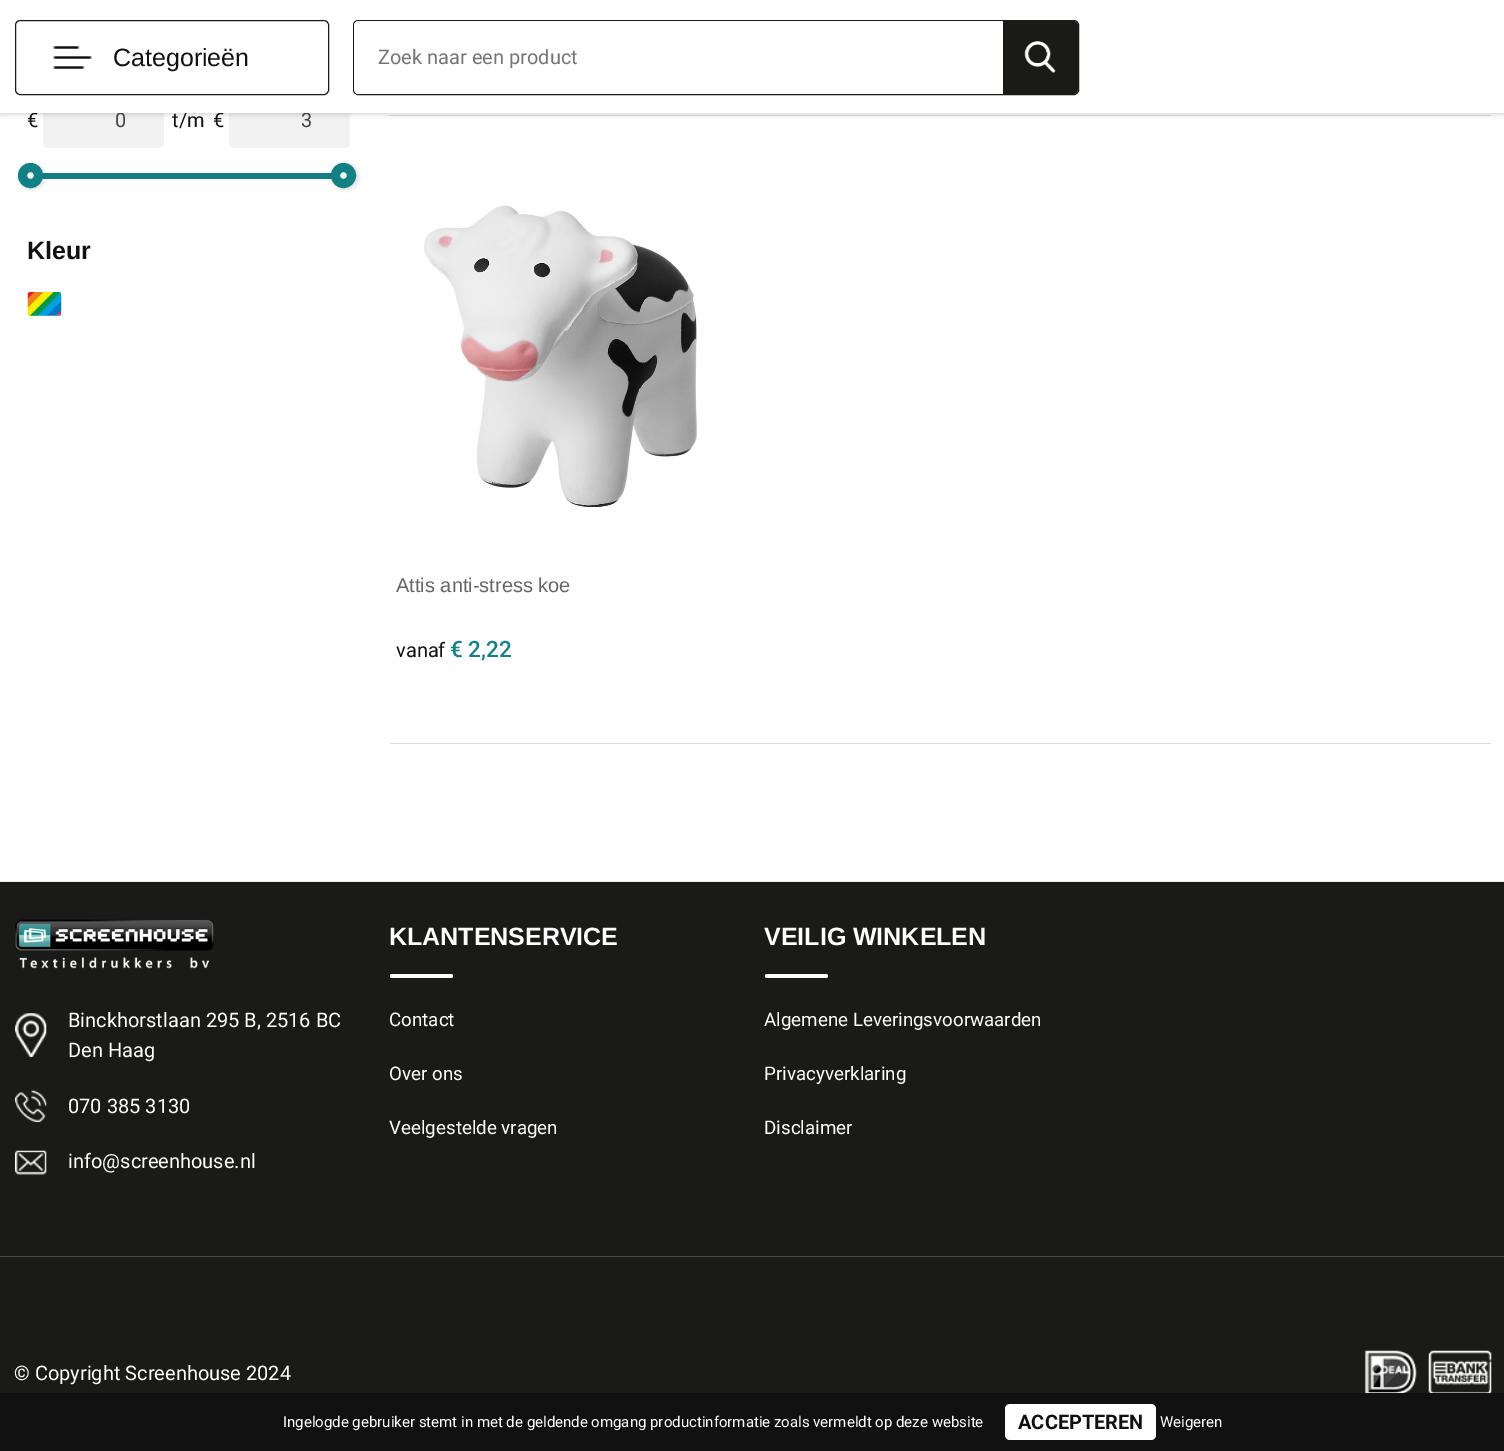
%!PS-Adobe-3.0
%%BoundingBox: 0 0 1504 1451
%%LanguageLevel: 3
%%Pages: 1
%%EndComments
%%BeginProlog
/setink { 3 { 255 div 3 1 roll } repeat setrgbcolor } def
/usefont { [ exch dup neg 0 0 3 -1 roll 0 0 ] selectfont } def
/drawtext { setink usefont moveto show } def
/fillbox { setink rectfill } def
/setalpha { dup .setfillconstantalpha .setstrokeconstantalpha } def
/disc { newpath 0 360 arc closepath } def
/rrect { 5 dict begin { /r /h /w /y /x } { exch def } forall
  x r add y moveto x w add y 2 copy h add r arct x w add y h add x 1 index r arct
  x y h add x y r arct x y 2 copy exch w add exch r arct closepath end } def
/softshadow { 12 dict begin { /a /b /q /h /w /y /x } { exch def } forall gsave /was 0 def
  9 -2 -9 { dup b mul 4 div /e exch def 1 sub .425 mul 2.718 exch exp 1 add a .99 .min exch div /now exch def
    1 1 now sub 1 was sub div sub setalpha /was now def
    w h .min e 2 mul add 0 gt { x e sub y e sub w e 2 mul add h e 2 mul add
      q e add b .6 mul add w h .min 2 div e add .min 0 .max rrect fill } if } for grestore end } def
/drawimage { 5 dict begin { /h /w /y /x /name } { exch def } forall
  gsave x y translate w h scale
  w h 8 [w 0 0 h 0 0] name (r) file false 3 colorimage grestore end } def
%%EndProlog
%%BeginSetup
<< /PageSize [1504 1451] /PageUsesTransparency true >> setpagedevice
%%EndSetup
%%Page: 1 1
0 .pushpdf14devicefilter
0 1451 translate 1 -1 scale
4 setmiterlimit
0 0 1504 1451 255 255 255 fillbox
242 242 242 setink
43 94 121 54 5 rrect fill
229 94 121 54 5 rrect fill
390 115 1101 1 221 221 221 fillbox
0 0 0 setink
0 1 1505 113 0 3 0.2 softshadow
(€) 27 127 /Roboto-Regular 20 17 17 17 drawtext
(0) 115 127 /Roboto-Regular 20 68 68 68 drawtext
(t/m) 172 127 /Roboto-Regular 20 17 17 17 drawtext
(€) 213 127 /Roboto-Regular 20 17 17 17 drawtext
(3) 301 127 /Roboto-Regular 20 68 68 68 drawtext
0 0 1504 113 255 255 255 fillbox
26 26 24 setink
15.5 20.5 313 74 4.5 rrect stroke
(assets/img1.rgb) 53 46 39 23 drawimage
(Categorieën) 113 66 /LiberationSans-Regular 25 17 17 17 drawtext
26 26 24 setink
353.5 20.5 725 74 4.5 rrect stroke
255 255 255 setink
359 21 moveto 1003 21 lineto 1003 94 lineto 359 94 lineto 356 94 354 92 354 89 curveto 354 26 lineto 354 23 356 21 359 21 curveto closepath fill
(Zoek naar een product) 378 64 /Roboto-Regular 20 117 117 117 drawtext
26 26 24 setink
1003 21 moveto 1073 21 lineto 1076 21 1078 23 1078 26 curveto 1078 89 lineto 1078 92 1076 94 1073 94 curveto 1003 94 lineto closepath fill
(assets/img2.rgb) 1024 41 32 32 drawimage
42 173 290 6 19 128 134 fillbox
0 0 0 setink
18 163 27 27 13.5 2 0.1 softshadow
255 255 255 setink
30.5 175.5 8 disc gsave fill grestore
19 128 134 setink
9 setlinewidth
stroke
0 0 0 setink
331 163 28 27 13.5 2 0.1 softshadow
255 255 255 setink
343.5 175.5 8 disc gsave fill grestore
19 128 134 setink
stroke
(Kleur) 27 259 /LiberationSans-Bold 25 17 17 17 drawtext
(assets/img3.rgb) 27 292 35 24 drawimage
(assets/img4.rgb) 424 205 273 303 drawimage
(Attis anti-stress koe) 396 592 /LiberationSans-Regular 20 102 102 102 drawtext
(vanaf) 396 657 /Roboto-Regular 20 17 17 17 drawtext
(€ 2,22) 450 657 /Roboto-Medium 22.5 19 128 134 drawtext
390 743 1101 1 221 221 221 fillbox
0 882 1504 511 26 26 24 fillbox
0 881 1504 1 234 234 234 fillbox
0 1256 1504 1 72 72 70 fillbox
(assets/img5.rgb) 15 919 199 50 drawimage
(assets/img6.rgb) 15 1013 32 44 drawimage
(Binckhorstlaan 295 B, 2516 BC) 68 1027 /Roboto-Regular 20 255 255 255 drawtext
(Den Haag) 68 1057 /Roboto-Regular 20 255 255 255 drawtext
(assets/img7.rgb) 15 1090 32 32 drawimage
(070 385 3130) 68 1113 /Roboto-Regular 20 255 255 255 drawtext
(assets/img8.rgb) 15 1150 32 25 drawimage
(info@screenhouse.nl) 68 1168 /Roboto-Regular 20 255 255 255 drawtext
(KLANTENSERVICE) 389 945 /LiberationSans-Bold 25 255 255 255 drawtext
390 974 63 4 2 rrect fill
(Contact) 389 1026 /Roboto-Regular 18.75 255 255 255 drawtext
(Over ons) 389 1080 /Roboto-Regular 18.75 255 255 255 drawtext
(Veelgestelde vragen) 389 1134 /Roboto-Regular 18.75 255 255 255 drawtext
(VEILIG WINKELEN) 764 945 /LiberationSans-Bold 25 255 255 255 drawtext
765 974 63 4 2 rrect fill
(Algemene Leveringsvoorwaarden) 764 1026 /Roboto-Regular 18.75 255 255 255 drawtext
(Privacyverklaring) 764 1080 /Roboto-Regular 18.75 255 255 255 drawtext
(Disclaimer) 764 1134 /Roboto-Regular 18.75 255 255 255 drawtext
(© Copyright Screenhouse 2024) 14 1380 /Roboto-Regular 20 255 255 255 drawtext
(assets/img9.rgb) 1364 1350 53 43 drawimage
(assets/img10.rgb) 1428 1350 64 43 drawimage
0 1393 1504 58 17 17 17 fillbox
(Ingelogde gebruiker stemt in met de geldende omgang productinformatie zoals vermeldt op deze website) 283 1427 /Roboto-Regular 15 255 255 255 drawtext
1005 1404 151 36 5 rrect fill
(ACCEPTEREN) 1018 1429 /Roboto-Bold 20 17 17 17 drawtext
(Weigeren) 1160 1427 /Roboto-Regular 15 255 255 255 drawtext
.poppdf14devicefilter showpage
%%EOF
